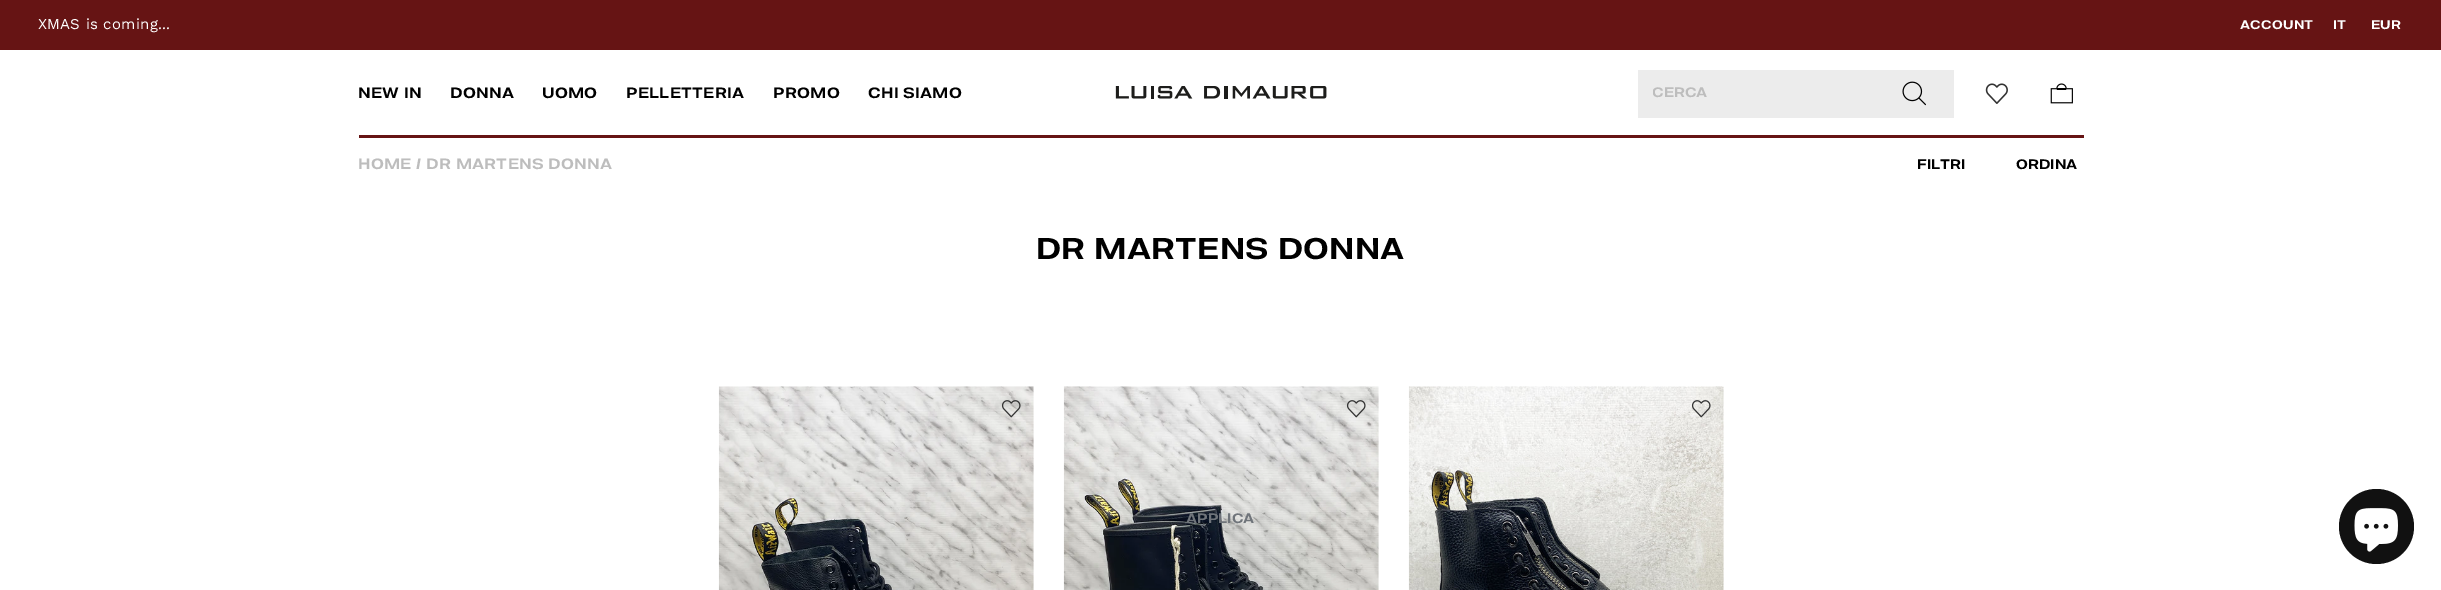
%!PS-Adobe-3.0
%%BoundingBox: 0 0 2441 590
%%LanguageLevel: 3
%%Pages: 1
%%EndComments
%%BeginProlog
/setink { 3 { 255 div 3 1 roll } repeat setrgbcolor } def
/usefont { [ exch dup neg 0 0 3 -1 roll 0 0 ] selectfont } def
/drawtext { setink usefont moveto show } def
/fillbox { setink rectfill } def
/disc { newpath 0 360 arc closepath } def
/drawimage { 5 dict begin { /h /w /y /x /name } { exch def } forall
  gsave x y translate w h scale
  w h 8 [w 0 0 h 0 0] name (r) file false 3 colorimage grestore end } def
%%EndProlog
%%BeginSetup
<< /PageSize [2441 590] >> setpagedevice
%%EndSetup
%%Page: 1 1
0 590 translate 1 -1 scale
4 setmiterlimit
0 0 2441 590 255 255 255 fillbox
0 0 2441 50 102 20 20 fillbox
/WorkSans-Regular 15 usefont
255 255 255 setink
38 29 moveto 0.25 0 (XMAS is coming...) ashow
/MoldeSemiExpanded-SemiBold 12.5 usefont
2240 29 moveto 0.25 0 (ACCOUNT) ashow
(IT) 2333 29 /MoldeSemiExpanded-SemiBold 12.5 255 255 255 drawtext
(EUR) 2371 29 /MoldeSemiExpanded-SemiBold 12.5 255 255 255 drawtext
359 135 1725 3 102 20 20 fillbox
/MoldeSemiExpanded-SemiBold 15 usefont
0 0 0 setink
358 98 moveto 0.25 0 (NEW IN) ashow
450 98 moveto 0.25 0 (DONNA) ashow
542 98 moveto 0.25 0 (UOMO) ashow
626 98 moveto 0.25 0 (PELLETTERIA) ashow
773 98 moveto 0.25 0 (PROMO) ashow
868 98 moveto 0.25 0 (CHI SIAMO) ashow
(assets/img1.rgb) 1115 86 212 13 drawimage
1638 70 316 48 236 236 236 fillbox
gsave
1653 85 231 18 rectclip
(CERCA) 1652 97 /MoldeSemiExpanded-SemiBold 13.75 189 189 189 drawtext
grestore
(assets/img2.rgb) 1902 81 24 25 drawimage
(assets/img3.rgb) 1985 83 23 21 drawimage
(assets/img4.rgb) 2050 83 23 21 drawimage
189 189 189 setink
358 169 moveto 0.25 0 (HOME / DR MARTENS DONNA) ashow
(FILTRI) 1917 169 /MoldeSemiExpanded-SemiBold 13.75 0 0 0 drawtext
(ORDINA) 2016 169 /MoldeSemiExpanded-SemiBold 13.75 0 0 0 drawtext
(assets/img7.rgb) 1063 386 316 204 drawimage
(APPLICA) 1186 523 /MoldeSemiExpanded-SemiBold 13.75 111 116 122 drawtext
/MoldeSemiExpanded-SemiBold 30 usefont
0 0 0 setink
1036 259 moveto 0.25 0 (DR MARTENS DONNA) ashow
(assets/img5.rgb) 718 386 316 204 drawimage
(assets/img6.rgb) 1001 400 20 18 drawimage
(assets/img8.rgb) 1346 400 20 18 drawimage
(assets/img9.rgb) 1408 386 316 204 drawimage
(assets/img10.rgb) 1691 400 20 18 drawimage
17 17 17 setink
2376.5 526.5 37.5 disc fill
(assets/img11.rgb) 2354 508 44 44 drawimage
showpage
%%EOF
